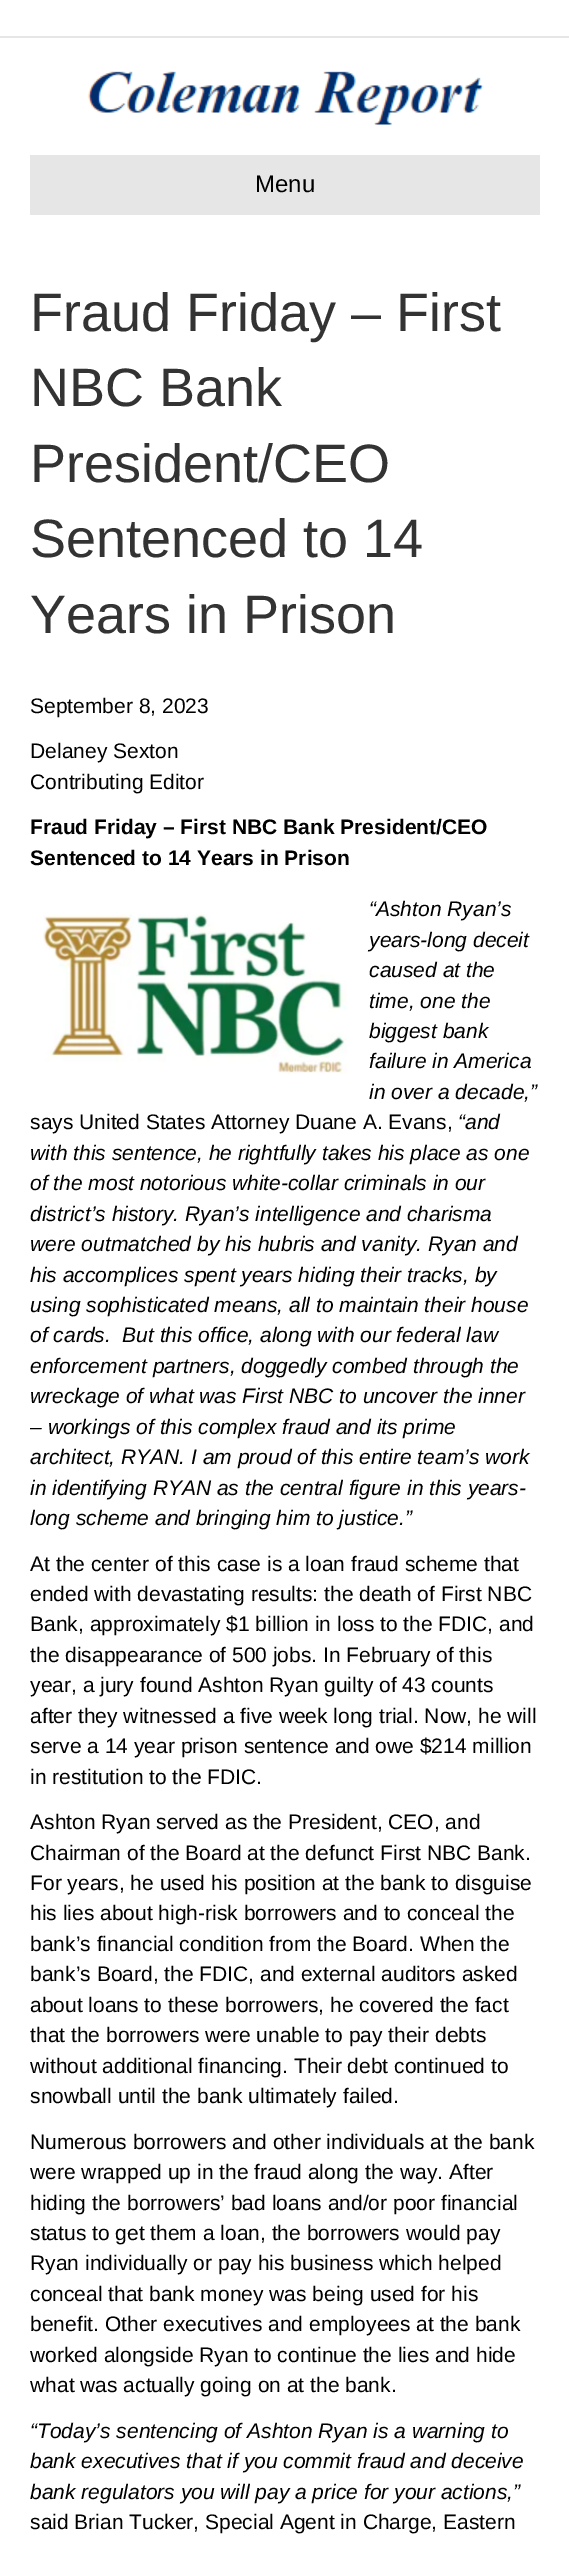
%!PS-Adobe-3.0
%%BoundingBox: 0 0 569 2553
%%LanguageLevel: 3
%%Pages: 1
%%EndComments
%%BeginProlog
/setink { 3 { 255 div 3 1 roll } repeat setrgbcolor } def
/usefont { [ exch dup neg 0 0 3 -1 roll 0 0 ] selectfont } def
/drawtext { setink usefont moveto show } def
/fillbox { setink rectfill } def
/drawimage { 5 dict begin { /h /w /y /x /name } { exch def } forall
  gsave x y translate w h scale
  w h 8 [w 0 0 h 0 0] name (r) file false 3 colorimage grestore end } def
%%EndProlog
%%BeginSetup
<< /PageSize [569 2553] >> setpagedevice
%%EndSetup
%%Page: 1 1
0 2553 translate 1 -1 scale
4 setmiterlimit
0 0 569 2553 255 255 255 fillbox
0 36 569 2 230 230 230 fillbox
(assets/img1.rgb) 88 71 396 54 drawimage
30 155 510 60 230 230 230 fillbox
(Menu) 255 192 /LiberationSans-Regular 24 0 0 0 drawtext
(Fraud Friday – First) 30 331 /LiberationSans-Regular 54 51 51 51 drawtext
(NBC Bank) 30 406 /LiberationSans-Regular 54 51 51 51 drawtext
(President/CEO) 30 482 /LiberationSans-Regular 54 51 51 51 drawtext
(Sentenced to 14) 30 557 /LiberationSans-Regular 54 51 51 51 drawtext
(Years in Prison) 30 633 /LiberationSans-Regular 54 51 51 51 drawtext
(September 8, 2023) 30 713 /LiberationSans-Regular 21 0 0 0 drawtext
(Delaney Sexton) 30 758 /LiberationSans-Regular 21 0 0 0 drawtext
(Contributing Editor) 30 789 /LiberationSans-Regular 21 0 0 0 drawtext
(Fraud Friday – First NBC Bank President/CEO) 30 834 /LiberationSans-Bold 21 0 0 0 drawtext
(Sentenced to 14 Years in Prison) 30 865 /LiberationSans-Bold 21 0 0 0 drawtext
(“Ashton Ryan’s) 369 916 /LiberationSans-Italic 21 0 0 0 drawtext
(years-long deceit) 369 947 /LiberationSans-Italic 21 0 0 0 drawtext
(caused at the) 369 977 /LiberationSans-Italic 21 0 0 0 drawtext
(time, one the) 369 1008 /LiberationSans-Italic 21 0 0 0 drawtext
(biggest bank) 369 1038 /LiberationSans-Italic 21 0 0 0 drawtext
(failure in America) 369 1068 /LiberationSans-Italic 21 0 0 0 drawtext
(in over a decade,”) 369 1099 /LiberationSans-Italic 21 0 0 0 drawtext
(says United States Attorney Duane A. Evans,) 30 1129 /LiberationSans-Regular 21 0 0 0 drawtext
(“and) 458 1129 /LiberationSans-Italic 21 0 0 0 drawtext
(with this sentence, he rightfully takes his place as one) 30 1160 /LiberationSans-Italic 21 0 0 0 drawtext
(of the most notorious white-collar criminals in our) 30 1190 /LiberationSans-Italic 21 0 0 0 drawtext
(district’s history. Ryan’s intelligence and charisma) 30 1221 /LiberationSans-Italic 21 0 0 0 drawtext
(were outmatched by his hubris and vanity. Ryan and) 30 1251 /LiberationSans-Italic 21 0 0 0 drawtext
(his accomplices spent years hiding their tracks, by) 30 1282 /LiberationSans-Italic 21 0 0 0 drawtext
(using sophisticated means, all to maintain their house) 30 1312 /LiberationSans-Italic 21 0 0 0 drawtext
(of cards.  But this office, along with our federal law) 30 1342 /LiberationSans-Italic 21 0 0 0 drawtext
(enforcement partners, doggedly combed through the) 30 1373 /LiberationSans-Italic 21 0 0 0 drawtext
(wreckage of what was First NBC to uncover the inner) 30 1403 /LiberationSans-Italic 21 0 0 0 drawtext
(– workings of this complex fraud and its prime) 30 1434 /LiberationSans-Italic 21 0 0 0 drawtext
(architect, RYAN. I am proud of this entire team’s work) 30 1464 /LiberationSans-Italic 21 0 0 0 drawtext
(in identifying RYAN as the central figure in this years-) 30 1495 /LiberationSans-Italic 21 0 0 0 drawtext
(long scheme and bringing him to justice.”) 30 1525 /LiberationSans-Italic 21 0 0 0 drawtext
(assets/img2.rgb) 43 914 304 160 drawimage
(At the center of this case is a loan fraud scheme that) 30 1571 /LiberationSans-Regular 21 0 0 0 drawtext
(ended with devastating results: the death of First NBC) 30 1601 /LiberationSans-Regular 21 0 0 0 drawtext
(Bank, approximately $1 billion in loss to the FDIC, and) 30 1631 /LiberationSans-Regular 21 0 0 0 drawtext
(the disappearance of 500 jobs. In February of this) 30 1662 /LiberationSans-Regular 21 0 0 0 drawtext
(year, a jury found Ashton Ryan guilty of 43 counts) 30 1692 /LiberationSans-Regular 21 0 0 0 drawtext
(after they witnessed a five week long trial. Now, he will) 30 1723 /LiberationSans-Regular 21 0 0 0 drawtext
(serve a 14 year prison sentence and owe $214 million) 30 1753 /LiberationSans-Regular 21 0 0 0 drawtext
(in restitution to the FDIC.) 30 1784 /LiberationSans-Regular 21 0 0 0 drawtext
(Ashton Ryan served as the President, CEO, and) 30 1829 /LiberationSans-Regular 21 0 0 0 drawtext
(Chairman of the Board at the defunct First NBC Bank.) 30 1860 /LiberationSans-Regular 21 0 0 0 drawtext
(For years, he used his position at the bank to disguise) 30 1890 /LiberationSans-Regular 21 0 0 0 drawtext
(his lies about high-risk borrowers and to conceal the) 30 1920 /LiberationSans-Regular 21 0 0 0 drawtext
(bank’s financial condition from the Board. When the) 30 1951 /LiberationSans-Regular 21 0 0 0 drawtext
(bank’s Board, the FDIC, and external auditors asked) 30 1981 /LiberationSans-Regular 21 0 0 0 drawtext
(about loans to these borrowers, he covered the fact) 30 2012 /LiberationSans-Regular 21 0 0 0 drawtext
(that the borrowers were unable to pay their debts) 30 2042 /LiberationSans-Regular 21 0 0 0 drawtext
(without additional financing. Their debt continued to) 30 2073 /LiberationSans-Regular 21 0 0 0 drawtext
(snowball until the bank ultimately failed.) 30 2103 /LiberationSans-Regular 21 0 0 0 drawtext
(Numerous borrowers and other individuals at the bank) 30 2149 /LiberationSans-Regular 21 0 0 0 drawtext
(were wrapped up in the fraud along the way. After) 30 2179 /LiberationSans-Regular 21 0 0 0 drawtext
(hiding the borrowers’ bad loans and/or poor financial) 30 2210 /LiberationSans-Regular 21 0 0 0 drawtext
(status to get them a loan, the borrowers would pay) 30 2240 /LiberationSans-Regular 21 0 0 0 drawtext
(Ryan individually or pay his business which helped) 30 2270 /LiberationSans-Regular 21 0 0 0 drawtext
(conceal that bank money was being used for his) 30 2301 /LiberationSans-Regular 21 0 0 0 drawtext
(benefit. Other executives and employees at the bank) 30 2331 /LiberationSans-Regular 21 0 0 0 drawtext
(worked alongside Ryan to continue the lies and hide) 30 2362 /LiberationSans-Regular 21 0 0 0 drawtext
(what was actually going on at the bank.) 30 2392 /LiberationSans-Regular 21 0 0 0 drawtext
(“Today’s sentencing of Ashton Ryan is a warning to) 30 2438 /LiberationSans-Italic 21 0 0 0 drawtext
(bank executives that if you commit fraud and deceive) 30 2468 /LiberationSans-Italic 21 0 0 0 drawtext
(bank regulators you will pay a price for your actions,”) 30 2499 /LiberationSans-Italic 21 0 0 0 drawtext
(said Brian Tucker, Special Agent in Charge, Eastern) 30 2529 /LiberationSans-Regular 21 0 0 0 drawtext
showpage
%%EOF
